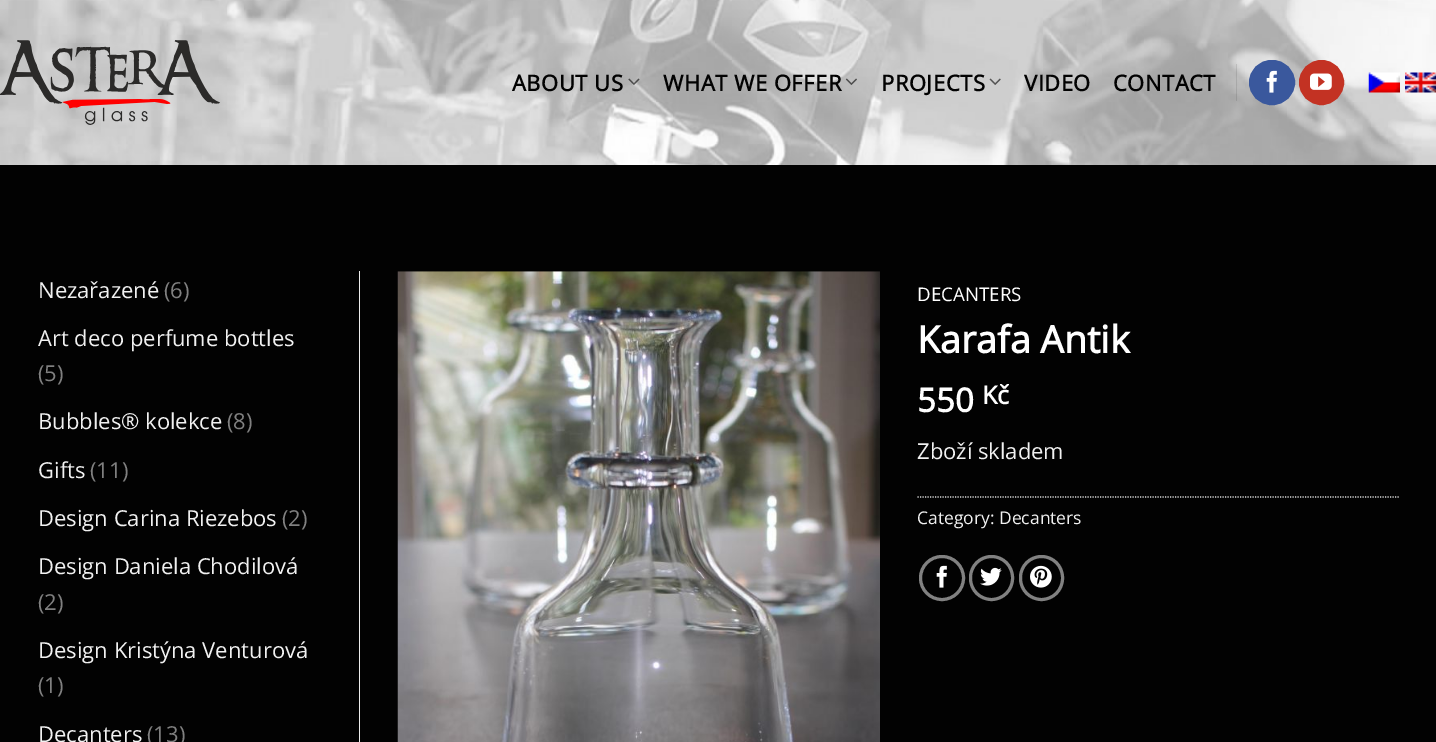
%!PS-Adobe-3.0
%%BoundingBox: 0 0 1436 742
%%LanguageLevel: 3
%%Pages: 1
%%EndComments
%%BeginProlog
/setink { 3 { 255 div 3 1 roll } repeat setrgbcolor } def
/usefont { [ exch dup neg 0 0 3 -1 roll 0 0 ] selectfont } def
/drawtext { setink usefont moveto show } def
/fillbox { setink rectfill } def
/setalpha { dup .setfillconstantalpha .setstrokeconstantalpha } def
/disc { newpath 0 360 arc closepath } def
/rrect { 5 dict begin { /r /h /w /y /x } { exch def } forall
  x r add y moveto x w add y 2 copy h add r arct x w add y h add x 1 index r arct
  x y h add x y r arct x y 2 copy exch w add exch r arct closepath end } def
/drawimage { 5 dict begin { /h /w /y /x /name } { exch def } forall
  gsave x y translate w h scale
  w h 8 [w 0 0 h 0 0] name (r) file false 3 colorimage grestore end } def
%%EndProlog
%%BeginSetup
<< /PageSize [1436 742] /PageUsesTransparency true >> setpagedevice
%%EndSetup
%%Page: 1 1
0 .pushpdf14devicefilter
0 742 translate 1 -1 scale
4 setmiterlimit
0 0 1436 742 255 255 255 fillbox
(assets/img1.rgb) 0 0 1436 165 drawimage
(assets/img2.rgb) 0 40 220 85 drawimage
/OpenSans-Bold 22 usefont
2 2 2 setink
512 91 moveto 0.5 0 (ABOUT US) ashow
(assets/img3.rgb) 628 78 12 7 drawimage
663 91 moveto 0.5 0 (WHAT WE OFFER) ashow
(assets/img4.rgb) 845 78 12 7 drawimage
881 91 moveto 0.5 0 (PROJECTS) ashow
(assets/img5.rgb) 989 78 12 7 drawimage
1024 91 moveto 0.5 0 (VIDEO) ashow
1113 91 moveto 0.5 0 (CONTACT) ashow
0.1 setalpha
1236 64 1 37 0 0 0 fillbox
1 setalpha
58 88 157 setink
1249.5 60.5 45 44 22 rrect gsave fill grestore
stroke
(assets/img6.rgb) 1266 70 11 23 drawimage
195 50 35 setink
1321.5 82.5 22 disc gsave fill grestore
stroke
(assets/img7.rgb) 1310 73 22 17 drawimage
(assets/img8.rgb) 1368 72 32 21 drawimage
(assets/img9.rgb) 1405 72 31 21 drawimage
0 165 1436 577 2 2 2 fillbox
(Nezařazené) 38 298 /OpenSans-Regular 22 241 241 241 drawtext
(\(6\)) 164 298 /OpenSans-Regular 22 128 128 128 drawtext
(Art deco perfume bottles) 38 346 /OpenSans-Regular 22 241 241 241 drawtext
(\(5\)) 38 381 /OpenSans-Regular 22 128 128 128 drawtext
(Bubbles® kolekce) 38 429 /OpenSans-Regular 22 241 241 241 drawtext
(\(8\)) 227 429 /OpenSans-Regular 22 128 128 128 drawtext
(Gifts) 38 478 /OpenSans-Regular 22 241 241 241 drawtext
(\(11\)) 90 478 /OpenSans-Regular 22 128 128 128 drawtext
(Design Carina Riezebos) 38 526 /OpenSans-Regular 22 241 241 241 drawtext
(\(2\)) 282 526 /OpenSans-Regular 22 128 128 128 drawtext
(Design Daniela Chodilová) 38 574 /OpenSans-Regular 22 241 241 241 drawtext
(\(2\)) 38 610 /OpenSans-Regular 22 128 128 128 drawtext
(Design Kristýna Venturová) 38 658 /OpenSans-Regular 22 241 241 241 drawtext
(\(1\)) 38 693 /OpenSans-Regular 22 128 128 128 drawtext
(Decanters) 38 742 /OpenSans-Regular 22 241 241 241 drawtext
(\(13\)) 147 742 /OpenSans-Regular 22 128 128 128 drawtext
359 271 1 471 236 236 236 fillbox
(assets/img10.rgb) 397 271 483 471 drawimage
(DECANTERS) 917 301 /OpenSans-Regular 18.75 255 255 255 drawtext
(Karafa Antik) 917 353 /OpenSans-Bold 37.5 255 255 255 drawtext
(550) 917 412 /OpenSans-Bold 33 255 255 255 drawtext
(Kč) 982 404 /OpenSans-Bold 25 255 255 255 drawtext
(Zboží skladem) 917 459 /OpenSans-Regular 22 241 241 241 drawtext
221 221 221 setink
1.2 setlinewidth
[1.25 1.25] 0 setdash
917.5 497 moveto 1399 497 lineto stroke
(Category: Decanters) 917 524 /OpenSans-Regular 17.5 241 241 241 drawtext
129 129 129 setink
3 setlinewidth
[] 0 setdash
942 578 21.5 disc stroke
(assets/img11.rgb) 936 565 11 23 drawimage
970.5 556.5 42 43 21 rrect stroke
(assets/img12.rgb) 980 567 22 19 drawimage
1020.5 556.5 42 43 21 rrect stroke
(assets/img13.rgb) 1030 565 22 23 drawimage
.poppdf14devicefilter showpage
%%EOF
